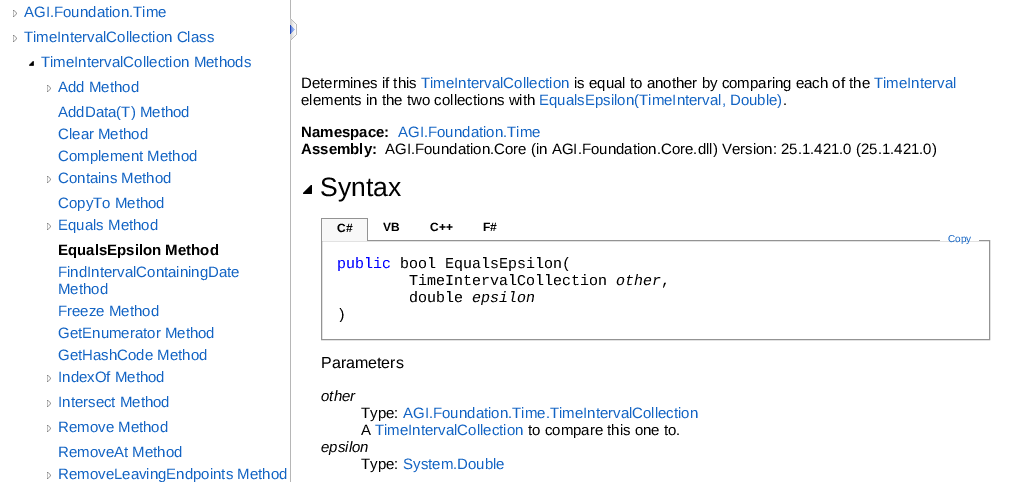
%!PS-Adobe-3.0
%%BoundingBox: 0 0 1020 482
%%LanguageLevel: 3
%%Pages: 1
%%EndComments
%%BeginProlog
/setink { 3 { 255 div 3 1 roll } repeat setrgbcolor } def
/usefont { [ exch dup neg 0 0 3 -1 roll 0 0 ] selectfont } def
/drawtext { setink usefont moveto show } def
/fillbox { setink rectfill } def
/drawimage { 5 dict begin { /h /w /y /x /name } { exch def } forall
  gsave x y translate w h scale
  w h 8 [w 0 0 h 0 0] name (r) file false 3 colorimage grestore end } def
%%EndProlog
%%BeginSetup
<< /PageSize [1020 482] >> setpagedevice
%%EndSetup
%%Page: 1 1
0 482 translate 1 -1 scale
4 setmiterlimit
0 0 1020 482 255 255 255 fillbox
290 0 1 482 182 182 182 fillbox
(assets/img1.rgb) 13 10 4 7 drawimage
(AGI.Foundation.Time) 24 17 /LiberationSans-Regular 15 19 100 196 drawtext
(assets/img1.rgb) 13 35 4 7 drawimage
(TimeIntervalCollection Class) 24 42 /LiberationSans-Regular 15 19 100 196 drawtext
(assets/img2.rgb) 29 61 5 5 drawimage
(TimeIntervalCollection Methods) 41 67 /LiberationSans-Regular 15 19 100 196 drawtext
(assets/img1.rgb) 47 85 4 7 drawimage
(Add Method) 58 92 /LiberationSans-Regular 15 19 100 196 drawtext
(AddData\(T\) Method) 58 117 /LiberationSans-Regular 15 19 100 196 drawtext
(Clear Method) 58 139 /LiberationSans-Regular 15 19 100 196 drawtext
(Complement Method) 58 161 /LiberationSans-Regular 15 19 100 196 drawtext
(assets/img1.rgb) 47 176 4 7 drawimage
(Contains Method) 58 183 /LiberationSans-Regular 15 19 100 196 drawtext
gsave
58 194 232 17 rectclip
(CopyTo Method) 58 208 /LiberationSans-Regular 15 19 100 196 drawtext
grestore
(assets/img1.rgb) 47 223 4 7 drawimage
(Equals Method) 58 230 /LiberationSans-Regular 15 19 100 196 drawtext
gsave
58 241 232 17 rectclip
(EqualsEpsilon Method) 58 255 /LiberationSans-Bold 15 0 0 0 drawtext
grestore
(FindIntervalContainingDate) 58 277 /LiberationSans-Regular 15 19 100 196 drawtext
(Method) 58 294 /LiberationSans-Regular 15 19 100 196 drawtext
(Freeze Method) 58 316 /LiberationSans-Regular 15 19 100 196 drawtext
(GetEnumerator Method) 58 338 /LiberationSans-Regular 15 19 100 196 drawtext
(GetHashCode Method) 58 360 /LiberationSans-Regular 15 19 100 196 drawtext
(assets/img1.rgb) 47 375 4 7 drawimage
(IndexOf Method) 58 382 /LiberationSans-Regular 15 19 100 196 drawtext
(assets/img1.rgb) 47 400 4 7 drawimage
(Intersect Method) 58 407 /LiberationSans-Regular 15 19 100 196 drawtext
(assets/img1.rgb) 47 425 4 7 drawimage
(Remove Method) 58 432 /LiberationSans-Regular 15 19 100 196 drawtext
(RemoveAt Method) 58 457 /LiberationSans-Regular 15 19 100 196 drawtext
(assets/img1.rgb) 47 472 4 7 drawimage
(RemoveLeavingEndpoints Method) 58 479 /LiberationSans-Regular 15 19 100 196 drawtext
(assets/img3.rgb) 290 18 7 23 drawimage
(Determines if this) 301 88 /LiberationSans-Regular 15 0 0 0 drawtext
(TimeIntervalCollection) 421 88 /LiberationSans-Regular 15 19 100 196 drawtext
(is equal to another by comparing each of the) 574 88 /LiberationSans-Regular 15 0 0 0 drawtext
(TimeInterval) 874 88 /LiberationSans-Regular 15 19 100 196 drawtext
(elements in the two collections with) 301 105 /LiberationSans-Regular 15 0 0 0 drawtext
(EqualsEpsilon\(TimeInterval, Double\)) 539 105 /LiberationSans-Regular 15 19 100 196 drawtext
(.) 783 105 /LiberationSans-Regular 15 0 0 0 drawtext
(Namespace:) 301 137 /LiberationSans-Bold 15 0 0 0 drawtext
(AGI.Foundation.Time) 398 137 /LiberationSans-Regular 15 19 100 196 drawtext
(Assembly:) 301 154 /LiberationSans-Bold 15 0 0 0 drawtext
(AGI.Foundation.Core \(in AGI.Foundation.Core.dll\) Version: 25.1.421.0 \(25.1.421.0\)) 385 154 /LiberationSans-Regular 15 0 0 0 drawtext
(assets/img4.rgb) 303 185 9 9 drawimage
(Syntax) 320 196 /LiberationSans-Regular 26.5 0 0 0 drawtext
147 147 147 setink
321.5 240.5 668 99 rectstroke
322 219 45 22 248 248 248 fillbox
321 218 47 1 147 147 147 fillbox
367 218 1 23 147 147 147 fillbox
321 218 1 23 147 147 147 fillbox
(C#) 337 232 /LiberationSans-Bold 12 0 0 0 drawtext
(VB) 383 231 /LiberationSans-Bold 12 0 0 0 drawtext
(C++) 430 231 /LiberationSans-Bold 12 0 0 0 drawtext
(F#) 483 231 /LiberationSans-Bold 12 0 0 0 drawtext
940 240 39 1 255 255 255 fillbox
(Copy) 948 242 /LiberationSans-Regular 10 19 100 196 drawtext
(public) 337 268 /LiberationMono-Regular 15 0 0 255 drawtext
(bool EqualsEpsilon\() 400 268 /LiberationMono-Regular 15 0 0 0 drawtext
(TimeIntervalCollection) 409 285 /LiberationMono-Regular 15 0 0 0 drawtext
(other) 616 285 /LiberationMono-Italic 15 0 0 0 drawtext
(,) 661 285 /LiberationMono-Regular 15 0 0 0 drawtext
(double) 409 302 /LiberationMono-Regular 15 0 0 0 drawtext
(epsilon) 472 302 /LiberationMono-Italic 15 0 0 0 drawtext
(\)) 337 319 /LiberationMono-Regular 15 0 0 0 drawtext
(Parameters) 321 368 /LiberationSans-Regular 16 0 0 0 drawtext
(other) 321 401 /LiberationSans-Italic 15 0 0 0 drawtext
(Type:) 361 418 /LiberationSans-Regular 15 0 0 0 drawtext
(AGI.Foundation.Time.TimeIntervalCollection) 403 418 /LiberationSans-Regular 15 19 100 196 drawtext
(A) 361 435 /LiberationSans-Regular 15 0 0 0 drawtext
(TimeIntervalCollection) 375 435 /LiberationSans-Regular 15 19 100 196 drawtext
(to compare this one to.) 528 435 /LiberationSans-Regular 15 0 0 0 drawtext
(epsilon) 321 452 /LiberationSans-Italic 15 0 0 0 drawtext
(Type:) 361 469 /LiberationSans-Regular 15 0 0 0 drawtext
(System.Double) 403 469 /LiberationSans-Regular 15 19 100 196 drawtext
showpage
%%EOF
